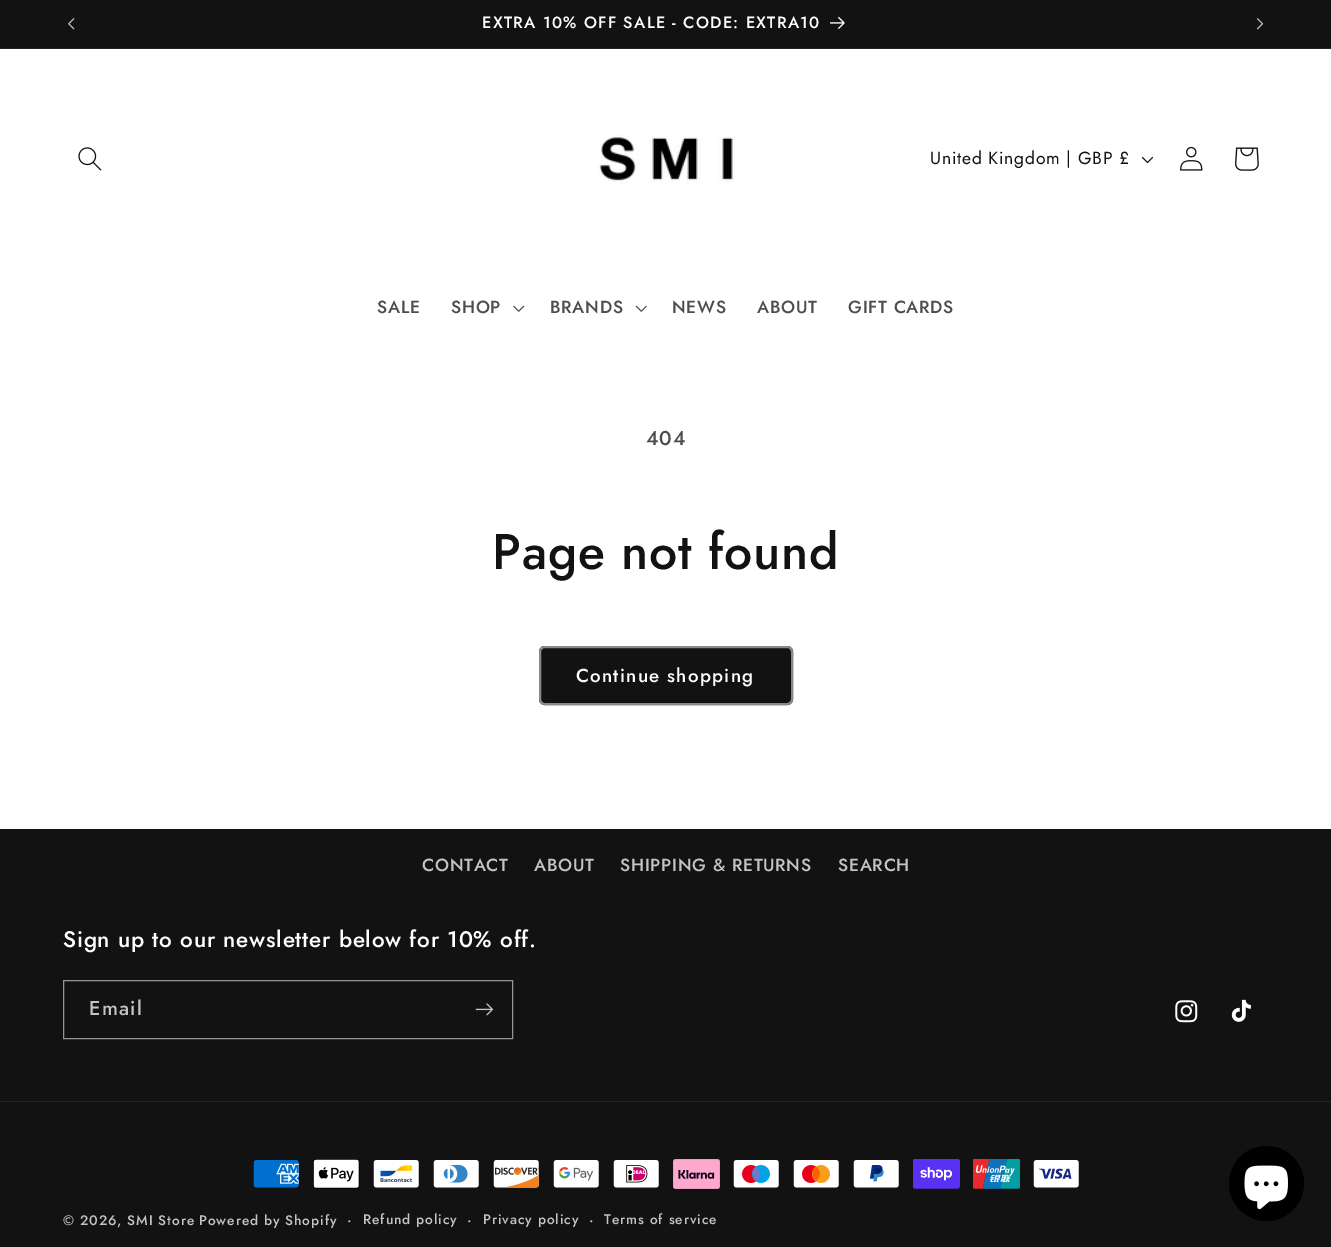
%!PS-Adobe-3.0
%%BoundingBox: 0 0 1331 1247
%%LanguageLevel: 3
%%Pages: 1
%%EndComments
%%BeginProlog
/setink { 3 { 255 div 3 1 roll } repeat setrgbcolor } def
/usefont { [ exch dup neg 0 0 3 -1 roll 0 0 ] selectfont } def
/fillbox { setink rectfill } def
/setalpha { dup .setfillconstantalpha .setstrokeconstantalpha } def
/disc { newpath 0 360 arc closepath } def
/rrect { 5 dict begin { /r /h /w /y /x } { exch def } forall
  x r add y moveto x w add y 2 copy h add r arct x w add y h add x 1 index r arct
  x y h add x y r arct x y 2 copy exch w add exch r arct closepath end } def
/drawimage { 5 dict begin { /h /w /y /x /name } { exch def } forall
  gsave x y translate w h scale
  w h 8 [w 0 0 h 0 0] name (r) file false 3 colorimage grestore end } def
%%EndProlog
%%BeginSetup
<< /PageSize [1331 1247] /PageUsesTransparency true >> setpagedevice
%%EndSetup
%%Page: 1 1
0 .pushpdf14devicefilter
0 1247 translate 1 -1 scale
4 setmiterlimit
0 0 1331 1247 255 255 255 fillbox
0 0 1331 48 18 18 18 fillbox
0 48 1331 1 37 37 37 fillbox
(assets/img1.rgb) 68 18 7 12 drawimage
/Jost-Medium 16.25 usefont
255 255 255 setink
482 28 moveto 1.25 0 (EXTRA 10% OFF SALE - CODE: EXTRA10) ashow
(assets/img2.rgb) 830 16 15 13 drawimage
(assets/img3.rgb) 1256 18 7 12 drawimage
(assets/img4.rgb) 78 147 24 24 drawimage
(assets/img5.rgb) 598 134 137 50 drawimage
/Jost-Regular 17.5 usefont
18 18 18 setink
930 164 moveto 0.75 0 (United Kingdom | GBP £) ashow
(assets/img6.rgb) 1141 156 13 8 drawimage
(assets/img7.rgb) 1180 146 23 25 drawimage
(assets/img8.rgb) 1235 147 24 24 drawimage
/Jost-Medium 17.5 usefont
77 77 77 setink
377 313 moveto 0.75 0 (SALE) ashow
451 313 moveto 0.75 0 (SHOP) ashow
(assets/img9.rgb) 513 305 12 7 drawimage
550 313 moveto 0.75 0 (BRANDS) ashow
(assets/img10.rgb) 635 305 12 7 drawimage
672 313 moveto 0.75 0 (NEWS) ashow
757 313 moveto 0.75 0 (ABOUT) ashow
848 313 moveto 0.75 0 (GIFT CARDS) ashow
/Jost-Medium 20 usefont
646 445 moveto 0.75 0 (404) ashow
/Jost-Medium 50 usefont
18 18 18 setink
492 569 moveto 0.75 0 (Page not found) ashow
539 646 254 59 6 rrect fill
539.5 646.5 253 58 5.5 rrect stroke
0.5 setalpha
255 255 255 setink
2 setlinewidth
540 647 252 57 5 rrect stroke
/Jost-Medium 18.75 usefont
1 setalpha
576 682 moveto 1.25 0 (Continue shopping) ashow
0 829 1331 418 18 18 18 fillbox
/Jost-Medium 17.5 usefont
196 196 196 setink
422 871 moveto 0.75 0 (CONTACT) ashow
534 871 moveto 0.75 0 (ABOUT) ashow
620 871 moveto 0.75 0 (SHIPPING & RETURNS) ashow
838 871 moveto 0.75 0 (SEARCH) ashow
/Jost-Medium 22.5 usefont
255 255 255 setink
63 947 moveto 0.75 0 (Sign up to our newsletter below for 10% off.) ashow
148 148 148 setink
1 setlinewidth
63.5 980.5 449 58 rectstroke
/Jost-Medium 20 usefont
196 196 196 setink
89 1015 moveto 1.25 0 (Email) ashow
(assets/img11.rgb) 475 1003 18 13 drawimage
(assets/img12.rgb) 1175 1000 23 23 drawimage
(assets/img13.rgb) 1231 999 20 23 drawimage
0 1101 1331 1 37 37 37 fillbox
(assets/img14.rgb) 253 1160 46 28 drawimage
(assets/img15.rgb) 313 1159 47 30 drawimage
(assets/img16.rgb) 373 1160 46 28 drawimage
(assets/img17.rgb) 433 1160 46 28 drawimage
(assets/img18.rgb) 493 1160 46 28 drawimage
(assets/img19.rgb) 553 1160 46 28 drawimage
(assets/img20.rgb) 613 1160 46 28 drawimage
(assets/img21.rgb) 673 1159 47 30 drawimage
(assets/img22.rgb) 733 1160 46 28 drawimage
(assets/img23.rgb) 793 1160 46 28 drawimage
(assets/img24.rgb) 853 1160 46 28 drawimage
(assets/img25.rgb) 913 1159 47 30 drawimage
(assets/img26.rgb) 973 1159 47 30 drawimage
(assets/img27.rgb) 1033 1160 46 28 drawimage
/Jost-Medium 13.75 usefont
196 196 196 setink
63 1225 moveto 0.9 0 (© 2026, SMI Store) ashow
199 1225 moveto 0.9 0 (Powered by Shopify) ashow
/Jost-Medium 15 usefont
347 1225 moveto 0.9 0 (·) ashow
/Jost-Medium 13.75 usefont
363 1224 moveto 0.9 0 (Refund policy) ashow
/Jost-Medium 15 usefont
467 1225 moveto 0.9 0 (·) ashow
/Jost-Medium 13.75 usefont
483 1224 moveto 0.9 0 (Privacy policy) ashow
/Jost-Medium 15 usefont
589 1225 moveto 0.9 0 (·) ashow
/Jost-Medium 13.75 usefont
604 1224 moveto 0.9 0 (Terms of service) ashow
0 0 0 setink
1266.5 1183.5 37.5 disc fill
(assets/img28.rgb) 1244 1165 44 45 drawimage
.poppdf14devicefilter showpage
%%EOF
